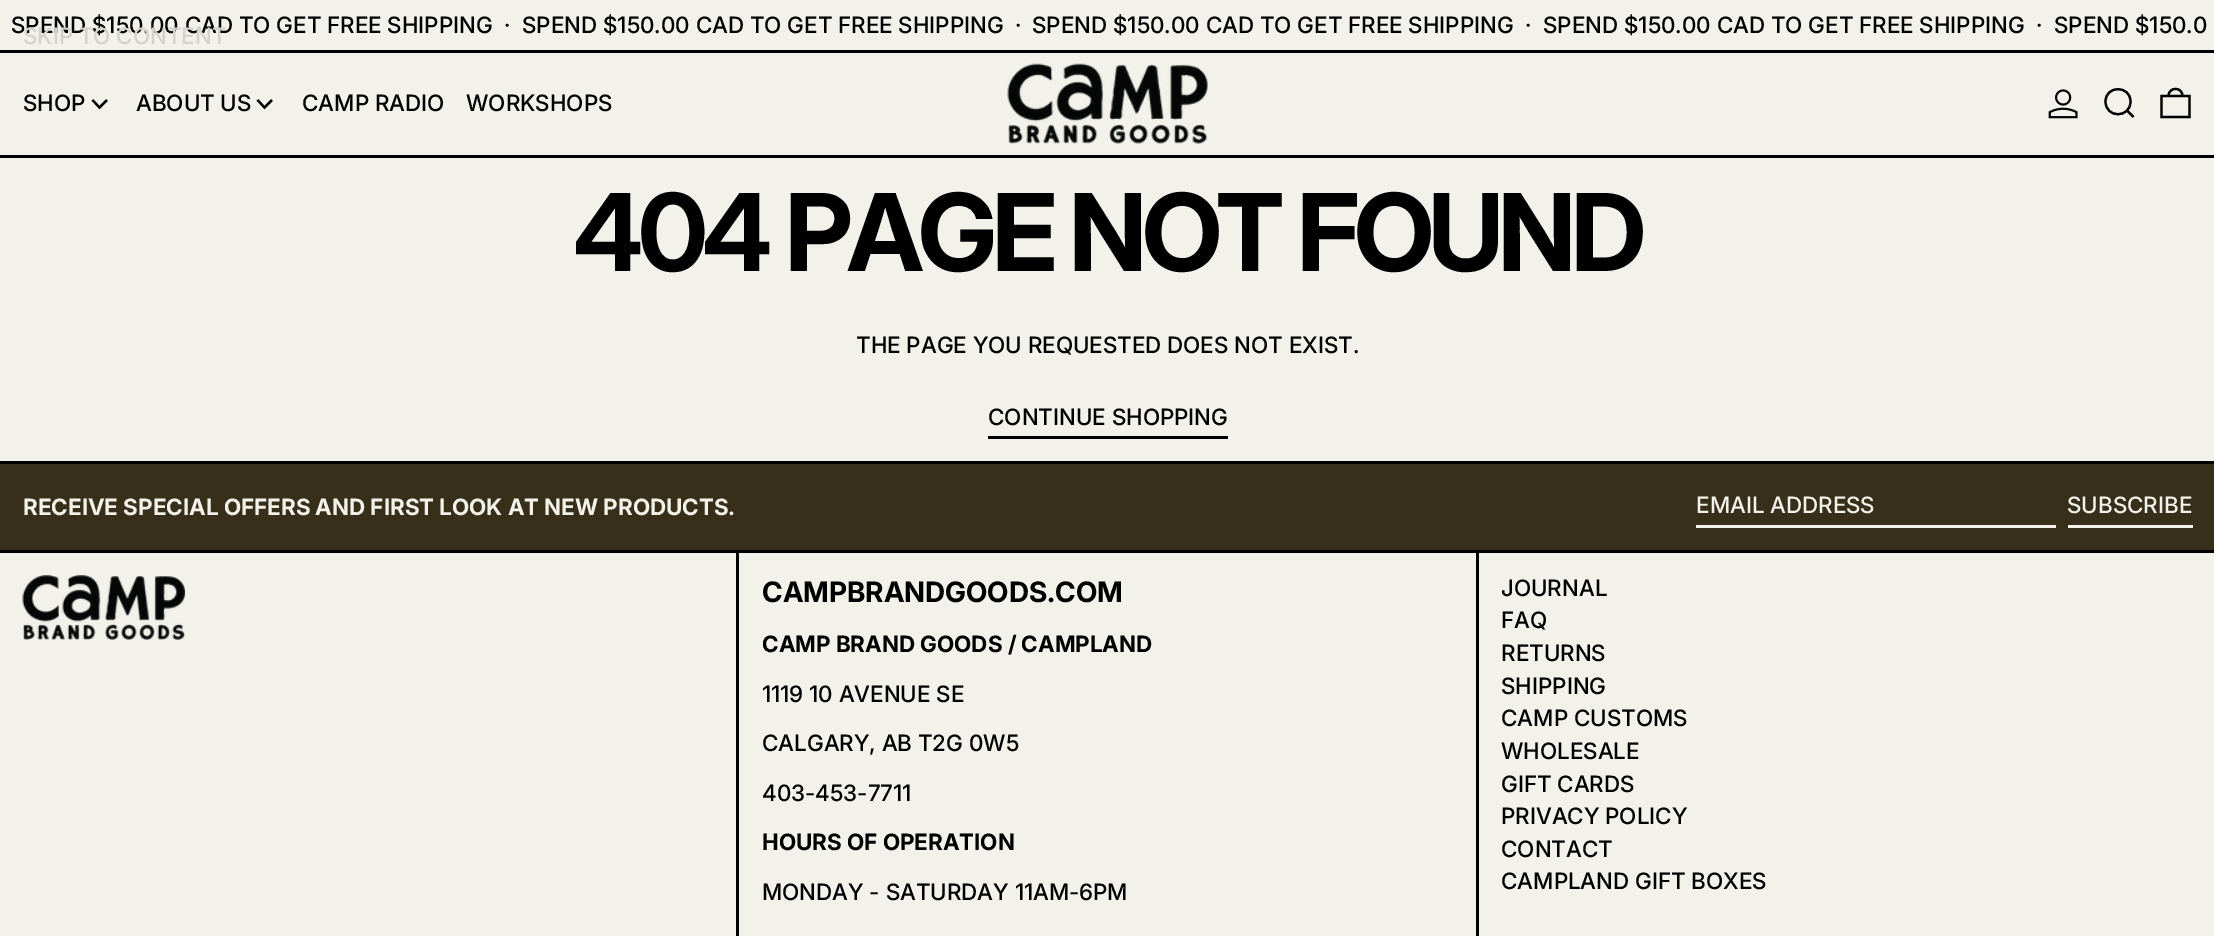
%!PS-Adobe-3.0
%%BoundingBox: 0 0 2214 936
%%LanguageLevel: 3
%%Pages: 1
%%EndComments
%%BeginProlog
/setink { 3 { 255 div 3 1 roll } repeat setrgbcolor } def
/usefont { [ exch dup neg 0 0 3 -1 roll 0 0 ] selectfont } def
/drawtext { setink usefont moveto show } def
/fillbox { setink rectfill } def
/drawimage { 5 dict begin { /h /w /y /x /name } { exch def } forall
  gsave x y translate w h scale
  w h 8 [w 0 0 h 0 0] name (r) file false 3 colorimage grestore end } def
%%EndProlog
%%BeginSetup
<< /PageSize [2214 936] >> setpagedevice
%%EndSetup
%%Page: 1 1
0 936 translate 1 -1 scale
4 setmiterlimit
0 0 2214 936 242 242 235 fillbox
0 50 2214 3 0 0 0 fillbox
(SPEND $150.00 CAD TO GET FREE SHIPPING) 11 33 /Inter-Medium 22.5 0 0 0 drawtext
(·) 504 33 /Inter-Medium 22.5 0 0 0 drawtext
(SPEND $150.00 CAD TO GET FREE SHIPPING) 522 33 /Inter-Medium 22.5 0 0 0 drawtext
(·) 1015 33 /Inter-Medium 22.5 0 0 0 drawtext
(SPEND $150.00 CAD TO GET FREE SHIPPING) 1032 33 /Inter-Medium 22.5 0 0 0 drawtext
(·) 1525 33 /Inter-Medium 22.5 0 0 0 drawtext
(SPEND $150.00 CAD TO GET FREE SHIPPING) 1543 33 /Inter-Medium 22.5 0 0 0 drawtext
(·) 2036 33 /Inter-Medium 22.5 0 0 0 drawtext
(SPEND $150.0) 2054 33 /Inter-Medium 22.5 0 0 0 drawtext
(SKIP TO CONTENT) 23 44 /Inter-Medium 22.5 211 211 204 drawtext
0 155 2214 3 0 0 0 fillbox
(SHOP) 23 111 /Inter-Medium 22.5 0 0 0 drawtext
2.2 setlinewidth
92.5 100 moveto 99.5 107.5 lineto 107 100 lineto stroke
(ABOUT US) 136 111 /Inter-Medium 22.5 0 0 0 drawtext
257.5 100 moveto 264.5 107.5 lineto 272 100 lineto stroke
(CAMP RADIO) 302 111 /Inter-Medium 22.5 0 0 0 drawtext
(WORKSHOPS) 466 111 /Inter-Medium 22.5 0 0 0 drawtext
(assets/img1.rgb) 1007 63 201 81 drawimage
(assets/img2.rgb) 2048 89 30 30 drawimage
2105.5 101.5 moveto 2105.5 118.5 2130.5 118.5 2130.5 101.5 curveto 2130.5 85 2105.5 85 2105.5 101.5 curveto closepath 2127 110.5 moveto 2133.5 117 lineto stroke
2161.5 96 moveto 2189.5 96 lineto 2189.5 117 lineto 2161.5 117 lineto closepath 2182.5 96 moveto 2182.5 86.5 2168.5 86.5 2168.5 96 curveto stroke
0 461 2214 3 0 0 0 fillbox
/Inter-Bold 107.25 usefont
573 271 moveto -5.4 0 (404 PAGE NOT FOUND) ashow
(THE PAGE YOU REQUESTED DOES NOT EXIST.) 856 353 /Inter-Medium 22.5 0 0 0 drawtext
988 436 240 3 0 0 0 fillbox
(CONTINUE SHOPPING) 988 425 /Inter-Medium 22.5 0 0 0 drawtext
0 464 2214 86 56 47 27 fillbox
0 550 2214 3 0 0 0 fillbox
(RECEIVE SPECIAL OFFERS AND FIRST LOOK AT NEW PRODUCTS.) 23 515 /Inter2-Bold 22.5 242 242 235 drawtext
1696 525 360 3 242 242 235 fillbox
(EMAIL ADDRESS) 1696 513 /Inter-Medium 22.5 242 242 235 drawtext
2068 525 125 3 242 242 235 fillbox
(SUBSCRIBE) 2067 513 /Inter-Medium 22.5 242 242 235 drawtext
736 553 743 383 0 0 0 fillbox
(assets/img3.rgb) 22 575 163 65 drawimage
739 553 737 383 242 242 235 fillbox
(CAMPBRANDGOODS.COM) 762 602 /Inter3-Bold 28.1 0 0 0 drawtext
(CAMP BRAND GOODS / CAMPLAND) 762 652 /Inter2-Bold 22.5 0 0 0 drawtext
(1119 10 AVENUE SE) 762 702 /Inter-Medium 22.5 0 0 0 drawtext
(CALGARY, AB T2G 0W5) 762 751 /Inter-Medium 22.5 0 0 0 drawtext
(403-453-7711) 762 801 /Inter-Medium 22.5 0 0 0 drawtext
(HOURS OF OPERATION) 762 850 /Inter2-Bold 22.5 0 0 0 drawtext
(MONDAY - SATURDAY 11AM-6PM) 762 900 /Inter-Medium 22.5 0 0 0 drawtext
(JOURNAL) 1501 596 /Inter-Medium 22.5 0 0 0 drawtext
(FAQ) 1501 628 /Inter-Medium 22.5 0 0 0 drawtext
(RETURNS) 1501 661 /Inter-Medium 22.5 0 0 0 drawtext
(SHIPPING) 1501 694 /Inter-Medium 22.5 0 0 0 drawtext
(CAMP CUSTOMS) 1501 726 /Inter-Medium 22.5 0 0 0 drawtext
(WHOLESALE) 1501 759 /Inter-Medium 22.5 0 0 0 drawtext
(GIFT CARDS) 1501 792 /Inter-Medium 22.5 0 0 0 drawtext
(PRIVACY POLICY) 1501 824 /Inter-Medium 22.5 0 0 0 drawtext
(CONTACT) 1501 857 /Inter-Medium 22.5 0 0 0 drawtext
(CAMPLAND GIFT BOXES) 1501 889 /Inter-Medium 22.5 0 0 0 drawtext
showpage
%%EOF
